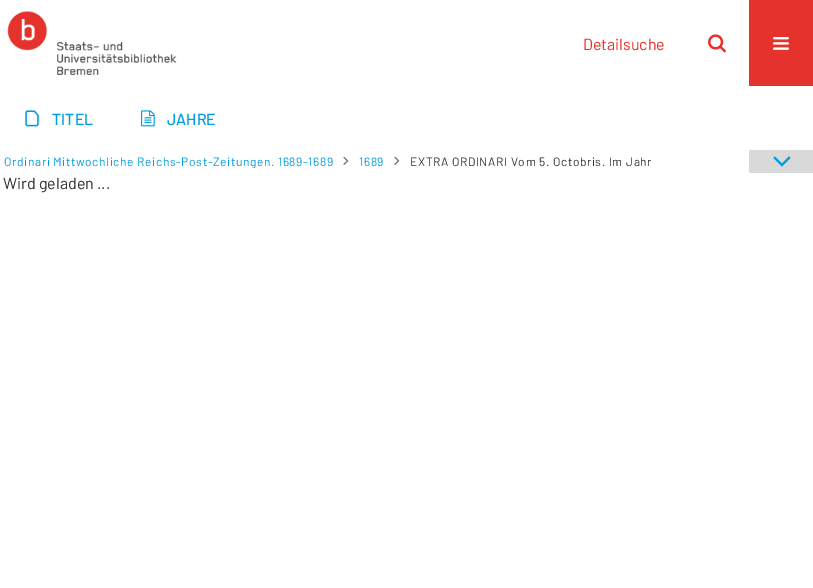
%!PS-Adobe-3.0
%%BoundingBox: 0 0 813 588
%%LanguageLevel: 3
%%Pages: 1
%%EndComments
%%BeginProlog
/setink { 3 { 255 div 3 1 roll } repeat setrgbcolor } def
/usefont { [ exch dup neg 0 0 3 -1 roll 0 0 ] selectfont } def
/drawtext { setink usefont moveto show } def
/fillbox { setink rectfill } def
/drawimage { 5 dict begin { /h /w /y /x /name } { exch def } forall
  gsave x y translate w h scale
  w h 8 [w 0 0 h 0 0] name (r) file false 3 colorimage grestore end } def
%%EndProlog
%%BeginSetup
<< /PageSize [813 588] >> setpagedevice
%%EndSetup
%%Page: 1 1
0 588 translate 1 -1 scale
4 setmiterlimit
0 0 813 588 255 255 255 fillbox
(assets/img1.rgb) 7 11 170 64 drawimage
(Detailsuche) 583 50 /Barlow-Regular 16 229 50 45 drawtext
(assets/img2.rgb) 708 34 19 19 drawimage
749 0 64 86 229 50 45 fillbox
(assets/img3.rgb) 773 37 16 13 drawimage
(assets/img4.rgb) 25 110 14 17 drawimage
(TITEL) 52 125 /Barlow-Medium 16 0 157 224 drawtext
(assets/img5.rgb) 141 110 14 17 drawimage
(JAHRE) 167 125 /Barlow-Medium 16 0 157 224 drawtext
gsave
4 154 329 14 rectclip
/Barlow-Regular 12 usefont
4 166 moveto 0.6 0 (Ordinari Mittwochliche Reichs-Post-Zeitungen. 1689-1689) ashow
grestore
(assets/img6.rgb) 343 156 6 9 drawimage
/Barlow-Regular 12 usefont
359 166 moveto 0.6 0 (1689) ashow
(assets/img6.rgb) 394 156 6 9 drawimage
51 51 51 setink
410 166 moveto 0.6 0 (EXTRA ORDINARI Vom 5. Octobris. Im Jahr) ashow
749 150 64 23 217 217 217 fillbox
(assets/img7.rgb) 773 156 18 11 drawimage
(Wird geladen ...) 3 189 /Barlow-Regular 16 51 51 51 drawtext
showpage
%%EOF
